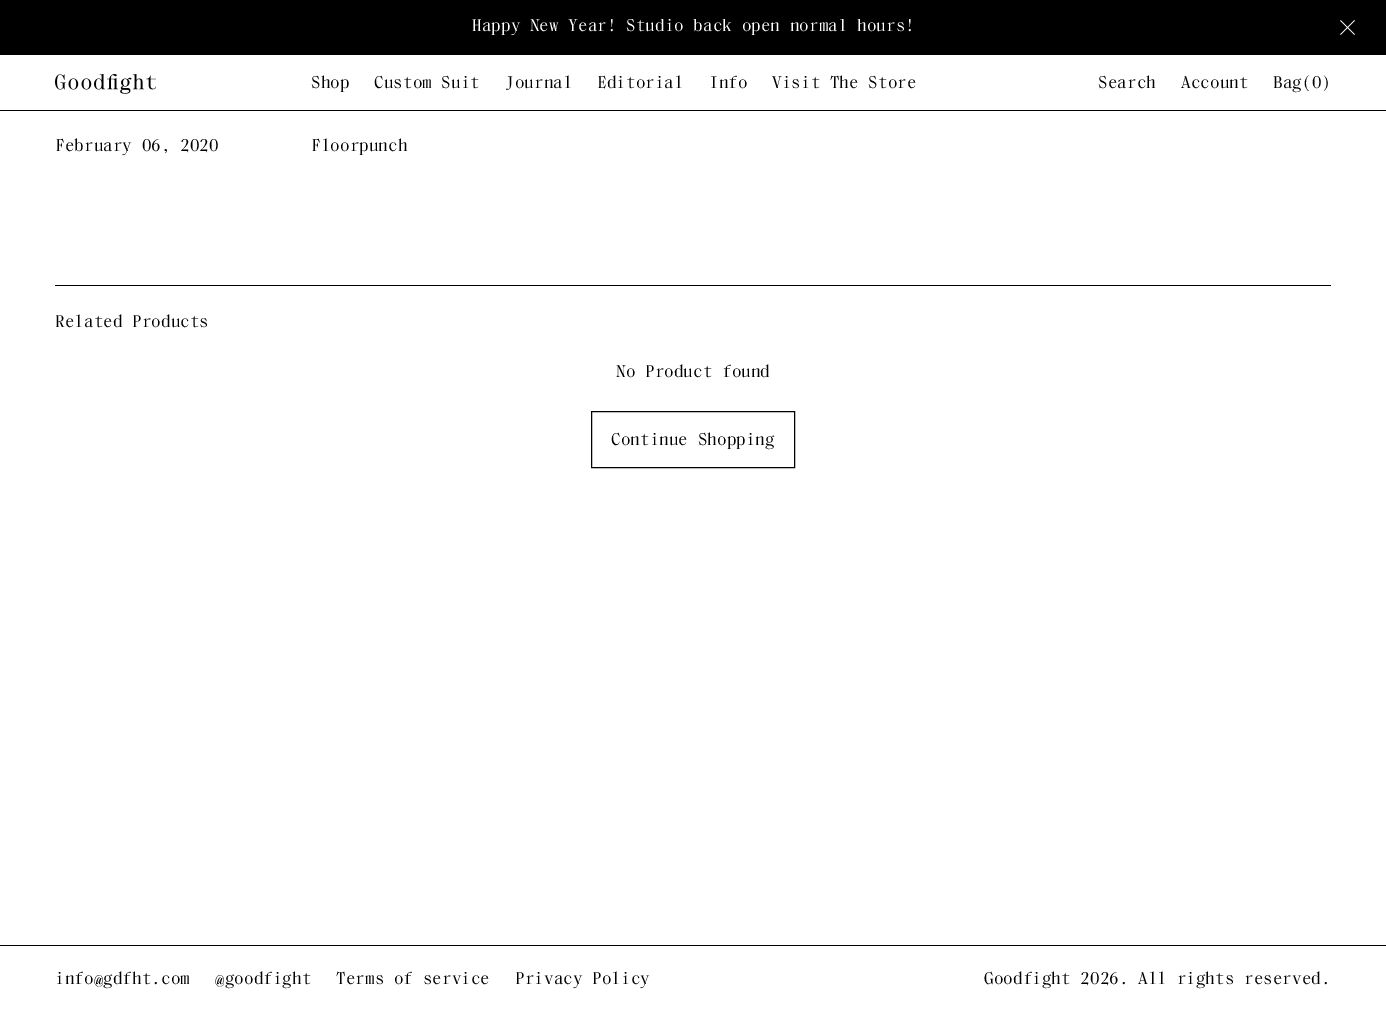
%!PS-Adobe-3.0
%%BoundingBox: 0 0 1386 1013
%%LanguageLevel: 3
%%Pages: 1
%%EndComments
%%BeginProlog
/setink { 3 { 255 div 3 1 roll } repeat setrgbcolor } def
/usefont { [ exch dup neg 0 0 3 -1 roll 0 0 ] selectfont } def
/drawtext { setink usefont moveto show } def
/fillbox { setink rectfill } def
/drawimage { 5 dict begin { /h /w /y /x /name } { exch def } forall
  gsave x y translate w h scale
  w h 8 [w 0 0 h 0 0] name (r) file false 3 colorimage grestore end } def
%%EndProlog
%%BeginSetup
<< /PageSize [1386 1013] >> setpagedevice
%%EndSetup
%%Page: 1 1
0 1013 translate 1 -1 scale
4 setmiterlimit
0 0 1386 1013 255 255 255 fillbox
0 0 1386 55 0 0 0 fillbox
gsave
471 19 444 17 rectclip
(Happy New Year! Studio back open normal hours!) 472 31 /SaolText-ExtraBold 17.5 255 255 255 drawtext
grestore
(assets/img1.rgb) 1340 20 15 15 drawimage
0 110 1386 1 0 0 0 fillbox
(assets/img2.rgb) 55 74 101 20 drawimage
(Shop) 311 88 /SaolText-ExtraBold 17.5 0 0 0 drawtext
(Custom Suit) 374 88 /SaolText-ExtraBold 17.5 0 0 0 drawtext
(Journal) 505 88 /SaolText-ExtraBold 17.5 0 0 0 drawtext
(Editorial) 597 88 /SaolText-ExtraBold 17.5 0 0 0 drawtext
(Info) 709 88 /SaolText-ExtraBold 17.5 0 0 0 drawtext
(Visit The Store) 772 88 /SaolText-ExtraBold 17.5 0 0 0 drawtext
(Search) 1098 88 /SaolText-ExtraBold 17.5 0 0 0 drawtext
(Account) 1181 88 /SaolText-ExtraBold 17.5 0 0 0 drawtext
(Bag\(0\)) 1273 88 /SaolText-ExtraBold 17.5 0 0 0 drawtext
(February 06, 2020) 55 151 /SaolText-ExtraBold 17.5 0 0 0 drawtext
(Floorpunch) 311 151 /SaolText-ExtraBold 17.5 0 0 0 drawtext
55 285 1276 1 0 0 0 fillbox
(Related Products) 55 327 /SaolText-ExtraBold 17.5 0 0 0 drawtext
(No Product found) 616 377 /SaolText-ExtraBold 17.5 0 0 0 drawtext
591.5 411.5 203 56 rectstroke
(Continue Shopping) 611 445 /SaolText-ExtraBold 17.5 0 0 0 drawtext
0 945 1386 1 0 0 0 fillbox
(info@gdfht.com) 55 984 /SaolText-ExtraBold 17.5 0 0 0 drawtext
(@goodfight) 215 984 /SaolText-ExtraBold 17.5 0 0 0 drawtext
(Terms of service) 336 984 /SaolText-ExtraBold 17.5 0 0 0 drawtext
(Privacy Policy) 515 984 /SaolText-ExtraBold 17.5 0 0 0 drawtext
(Goodfight 2026. All rights reserved.) 984 984 /SaolText-ExtraBold 17.5 0 0 0 drawtext
showpage
%%EOF
